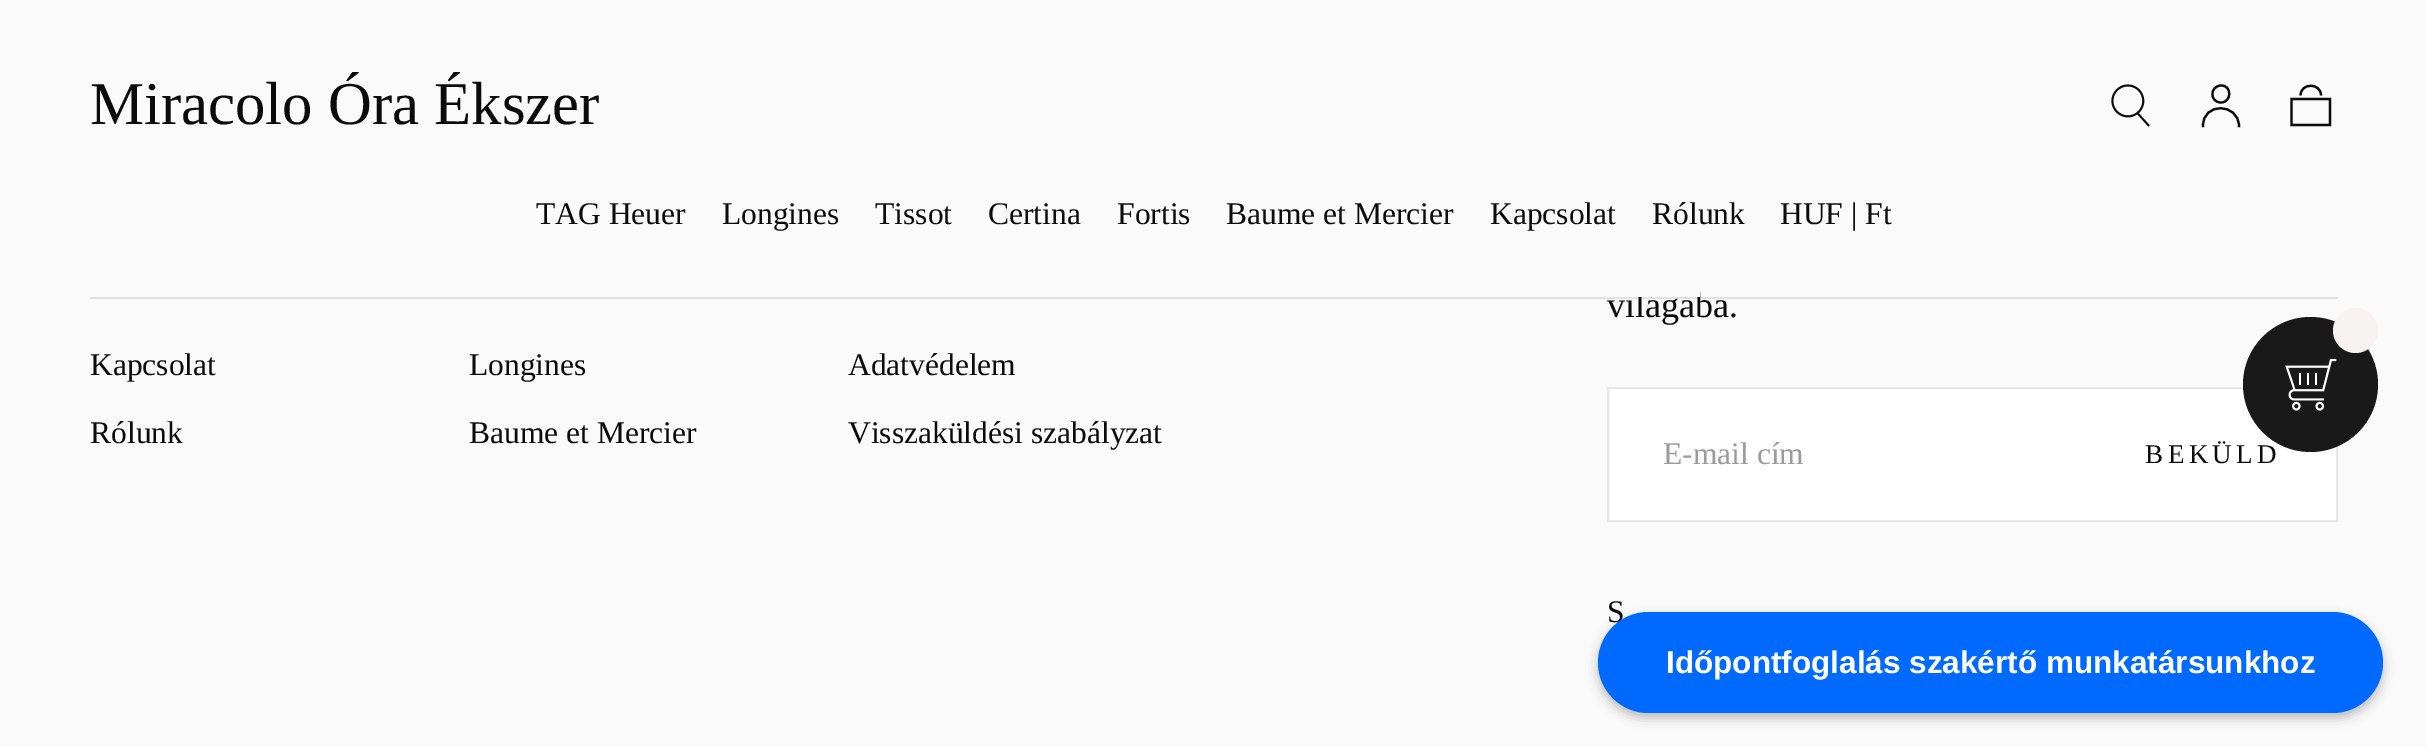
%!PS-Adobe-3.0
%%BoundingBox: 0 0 2426 747
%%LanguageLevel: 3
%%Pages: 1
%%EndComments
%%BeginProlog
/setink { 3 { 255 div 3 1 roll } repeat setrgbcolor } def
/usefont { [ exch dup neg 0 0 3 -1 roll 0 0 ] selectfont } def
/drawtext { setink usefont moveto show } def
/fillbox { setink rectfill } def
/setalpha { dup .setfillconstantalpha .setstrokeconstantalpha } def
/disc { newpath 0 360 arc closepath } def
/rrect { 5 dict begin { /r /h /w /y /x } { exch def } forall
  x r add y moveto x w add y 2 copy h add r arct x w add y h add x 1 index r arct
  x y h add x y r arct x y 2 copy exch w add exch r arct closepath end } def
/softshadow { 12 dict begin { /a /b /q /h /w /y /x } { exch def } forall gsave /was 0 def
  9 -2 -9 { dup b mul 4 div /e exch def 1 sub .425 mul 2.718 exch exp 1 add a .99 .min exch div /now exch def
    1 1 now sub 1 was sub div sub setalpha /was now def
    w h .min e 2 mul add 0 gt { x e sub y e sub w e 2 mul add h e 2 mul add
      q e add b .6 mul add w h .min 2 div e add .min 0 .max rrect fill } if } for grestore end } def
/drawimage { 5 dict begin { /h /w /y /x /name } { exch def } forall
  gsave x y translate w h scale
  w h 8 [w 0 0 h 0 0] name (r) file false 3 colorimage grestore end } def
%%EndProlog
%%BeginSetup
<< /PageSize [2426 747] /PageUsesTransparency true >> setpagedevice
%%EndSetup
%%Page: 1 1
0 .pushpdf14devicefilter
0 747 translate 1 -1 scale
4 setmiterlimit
0 0 2426 747 250 250 250 fillbox
(világába.) 1607 317 /LiberationSerif-Regular 36 11 11 11 drawtext
1627 292 73 5 250 250 250 fillbox
(Miracolo Óra Ékszer) 90 124 /LiberationSerif-Regular 60.75 11 11 11 drawtext
(assets/img1.rgb) 2111 84 39 43 drawimage
2.2 setlinewidth
2 setlinecap
2203 126 moveto 2202.5 102 2238.5 102.5 2239 126 curveto 2221 102.5 moveto 2232 102.5 2232 85 2221 85.5 curveto 2209.5 86 2209.5 102.5 2221 102.5 curveto closepath stroke
0 setlinecap
2330 125 moveto 2291.5 125 lineto 2291.5 99 lineto 2330 99 lineto closepath 2321 95.5 moveto 2321 82.5 2300.5 82.5 2300.5 95.5 curveto stroke
(TAG Heuer) 536 224 /LiberationSerif-Regular 31.5 11 11 11 drawtext
(Longines) 722 224 /LiberationSerif-Regular 31.5 11 11 11 drawtext
(Tissot) 875 224 /LiberationSerif-Regular 31.5 11 11 11 drawtext
(Certina) 988 224 /LiberationSerif-Regular 31.5 11 11 11 drawtext
(Fortis) 1117 224 /LiberationSerif-Regular 31.5 11 11 11 drawtext
(Baume et Mercier) 1226 224 /LiberationSerif-Regular 31.5 11 11 11 drawtext
(Kapcsolat) 1490 224 /LiberationSerif-Regular 31.5 11 11 11 drawtext
(Rólunk) 1652 224 /LiberationSerif-Regular 31.5 11 11 11 drawtext
(HUF | Ft) 1780 224 /LiberationSerif-Regular 31.5 11 11 11 drawtext
0.1 setalpha
90 297 2248 2 11 11 11 fillbox
1 setalpha
(Kapcsolat) 90 375 /LiberationSerif-Regular 31.5 11 11 11 drawtext
(Rólunk) 90 443 /LiberationSerif-Regular 31.5 11 11 11 drawtext
(Longines) 469 375 /LiberationSerif-Regular 31.5 11 11 11 drawtext
(Baume et Mercier) 469 443 /LiberationSerif-Regular 31.5 11 11 11 drawtext
(Adatvédelem) 848 375 /LiberationSerif-Regular 31.5 11 11 11 drawtext
(Visszaküldési szabályzat) 848 443 /LiberationSerif-Regular 31.5 11 11 11 drawtext
255 255 255 setink
1608 388 moveto 2337 388 lineto 2337 521 lineto 1608 521 lineto closepath gsave fill grestore
232 230 229 setink
2 setlinewidth
stroke
(E-mail cím) 1663 464 /LiberationSerif-Regular 31.5 158 154 153 drawtext
/LiberationSerif-Regular 27 usefont
11 11 11 setink
2145 463 moveto 4.5 0 (BEKÜLD) ashow
(S) 1607 622 /LiberationSerif-Regular 31.5 11 11 11 drawtext
25 25 25 setink
2310.5 384.5 67.5 disc fill
247 243 243 setink
2355.5 330.5 22.5 disc fill
(assets/img2.rgb) 2285 358 52 53 drawimage
0 0 0 setink
1598 617 785 101 50.5 5.5 0.25 softshadow
0 105 255 setink
1598 612 785 101 50.5 rrect fill
(Időpontfoglalás szakértő munkatársunkhoz) 1666 673 /LiberationSans-Bold 31.5 255 255 255 drawtext
.poppdf14devicefilter showpage
%%EOF
